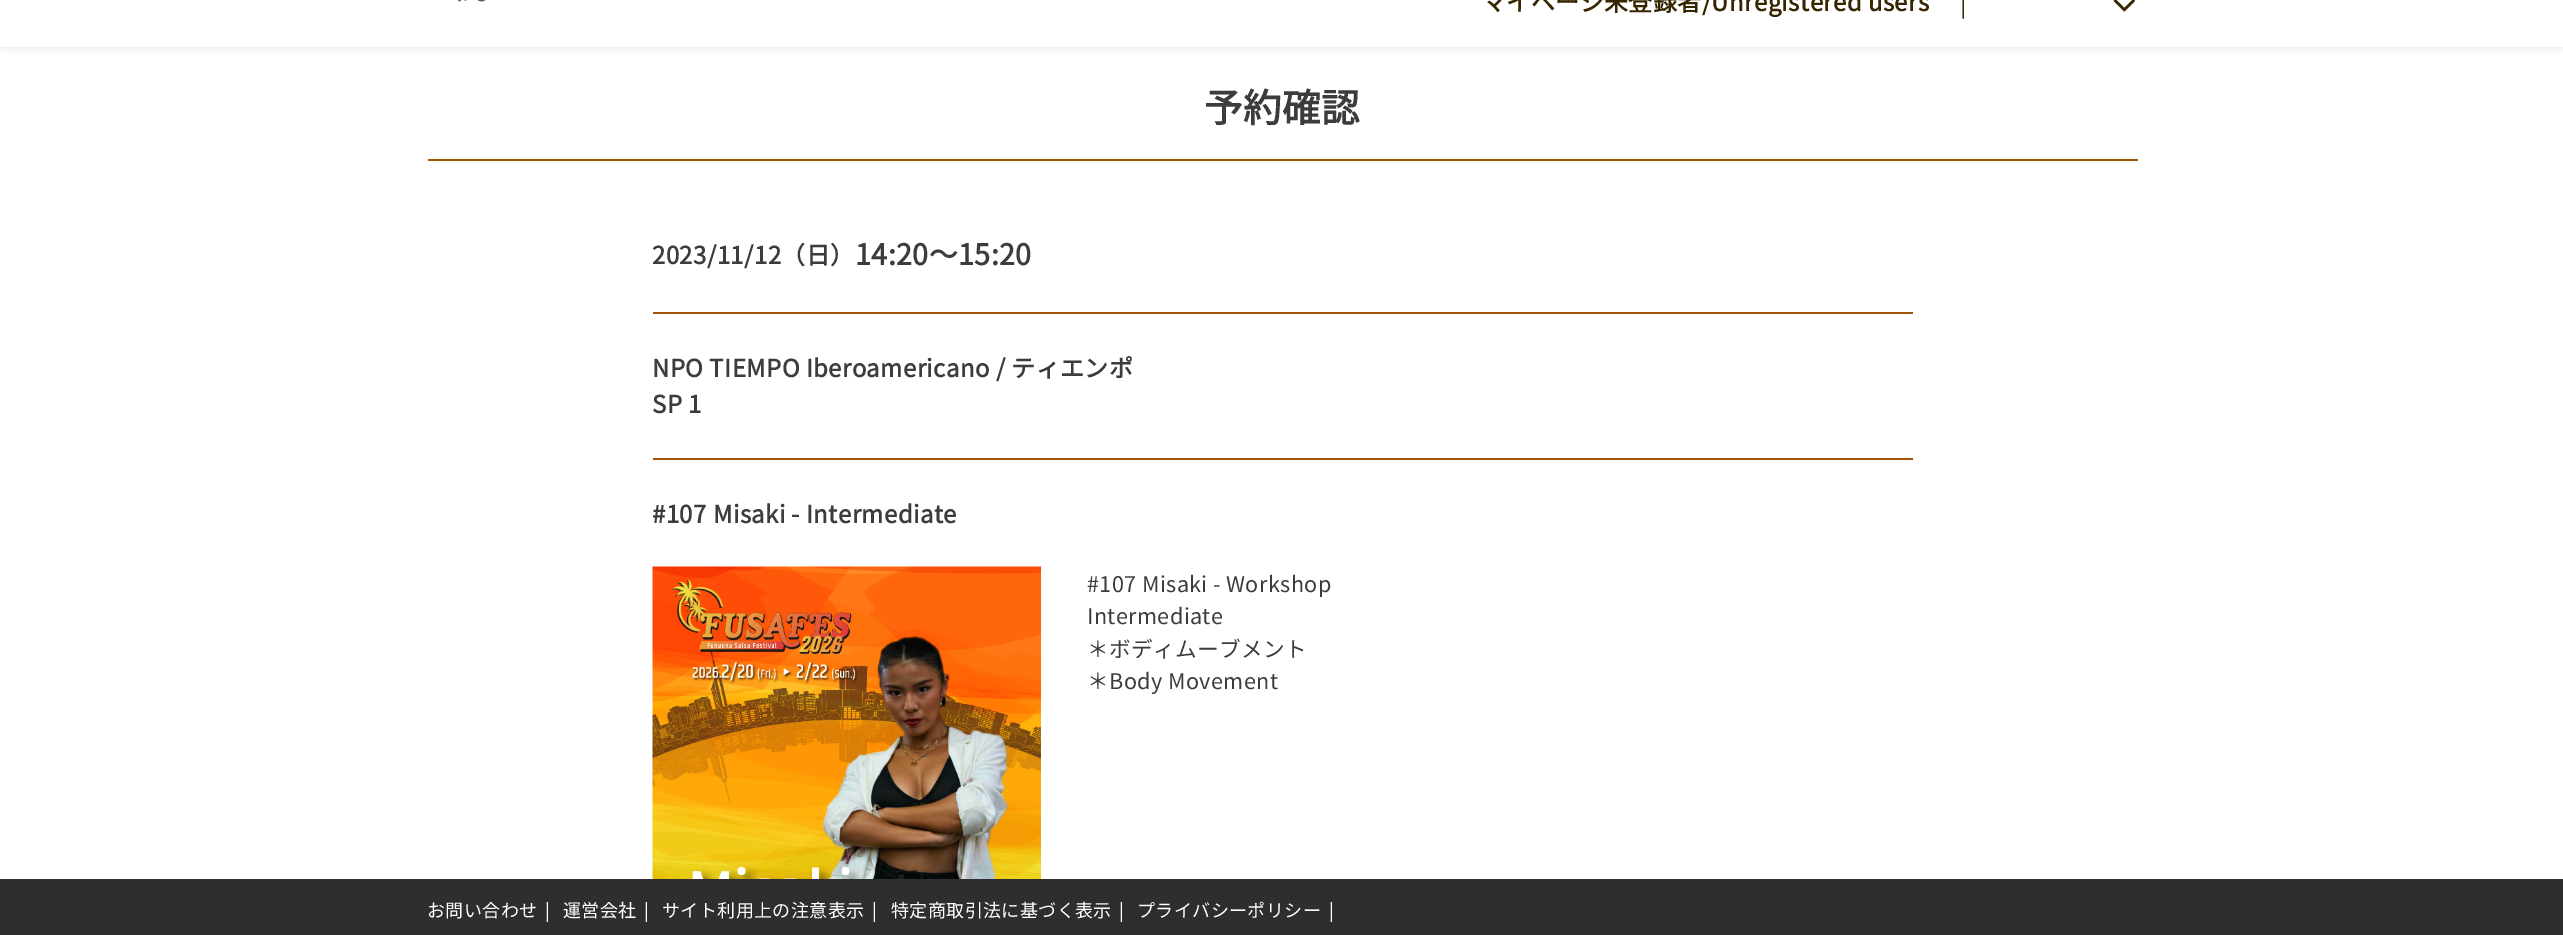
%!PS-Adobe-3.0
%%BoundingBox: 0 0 2563 935
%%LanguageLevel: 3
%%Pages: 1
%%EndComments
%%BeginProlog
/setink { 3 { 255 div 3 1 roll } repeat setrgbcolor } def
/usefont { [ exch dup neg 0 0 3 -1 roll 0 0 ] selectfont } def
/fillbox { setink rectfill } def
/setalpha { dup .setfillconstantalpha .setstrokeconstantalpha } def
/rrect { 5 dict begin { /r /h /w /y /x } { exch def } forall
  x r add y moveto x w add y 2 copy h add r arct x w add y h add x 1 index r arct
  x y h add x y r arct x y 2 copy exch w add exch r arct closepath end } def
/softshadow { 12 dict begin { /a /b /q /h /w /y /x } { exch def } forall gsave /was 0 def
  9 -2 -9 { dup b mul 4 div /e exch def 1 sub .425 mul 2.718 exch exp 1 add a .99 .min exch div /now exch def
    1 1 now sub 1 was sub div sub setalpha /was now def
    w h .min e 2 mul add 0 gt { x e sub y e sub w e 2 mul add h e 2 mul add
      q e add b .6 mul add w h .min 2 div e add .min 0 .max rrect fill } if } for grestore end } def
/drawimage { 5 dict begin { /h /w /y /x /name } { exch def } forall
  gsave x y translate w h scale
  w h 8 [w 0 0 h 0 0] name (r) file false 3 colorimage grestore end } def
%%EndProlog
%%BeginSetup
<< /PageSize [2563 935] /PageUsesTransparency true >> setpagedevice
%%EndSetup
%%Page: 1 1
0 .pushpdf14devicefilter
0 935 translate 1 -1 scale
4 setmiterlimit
0 0 2563 935 255 255 255 fillbox
0 0 0 setink
2 -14 2560 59 0 4.5 0.2 softshadow
0 0 2563 47 255 255 255 fillbox
(assets/img1.rgb) 458 0 28 2 drawimage
/NotoSansJP-Bold 24 usefont
54 38 0 setink
1482 11 moveto 0.4 0 (マイページ未登録者/Unregistered users) ashow
/NotoSansJP-Thin 24 usefont
1960 12 moveto 0.4 0 (|) ashow
(assets/img2.rgb) 2113 0 22 12 drawimage
428 159 1710 2 163 86 8 fillbox
/NotoSansJP-Bold 38.5 usefont
61 60 61 setink
1204 122 moveto 0.4 0 (予約確認) ashow
653 312 1260 2 163 86 8 fillbox
/NotoSansJP-Bold 24 usefont
61 60 61 setink
652 264 moveto 0.4 0 (2023/11/12（日）) ashow
/NotoSansJP-Bold 28.75 usefont
855 265 moveto 0.4 0 (14:20～15:20) ashow
653 458 1260 2 163 86 8 fillbox
/NotoSansJP-Bold 24 usefont
61 60 61 setink
652 377 moveto 0.4 0 (NPO TIEMPO Iberoamericano / ティエンポ) ashow
652 413 moveto 0.4 0 (SP 1) ashow
652 523 moveto 0.4 0 (#107 Misaki - Intermediate) ashow
(assets/img3.rgb) 652 566 389 313 drawimage
/NotoSansJP-Thin 21.6 usefont
1087 592 moveto 0.4 0 (#107 Misaki - Workshop) ashow
1087 624 moveto 0.4 0 (Intermediate) ashow
1087 657 moveto 0.4 0 (＊ボディムーブメント) ashow
1087 689 moveto 0.4 0 (＊Body Movement) ashow
0 879 2563 56 48 45 48 fillbox
/NotoSansJP-Thin 18 usefont
255 255 255 setink
427 917 moveto 0.4 0 (お問い合わせ) ashow
545 917 moveto 0.4 0 (|) ashow
563 917 moveto 0.4 0 (運営会社) ashow
644 917 moveto 0.4 0 (|) ashow
662 917 moveto 0.4 0 (サイト利用上の注意表示) ashow
872 917 moveto 0.4 0 (|) ashow
891 917 moveto 0.4 0 (特定商取引法に基づく表示) ashow
1119 917 moveto 0.4 0 (|) ashow
1137 917 moveto 0.4 0 (プライバシーポリシー) ashow
1329 917 moveto 0.4 0 (|) ashow
.poppdf14devicefilter showpage
%%EOF
